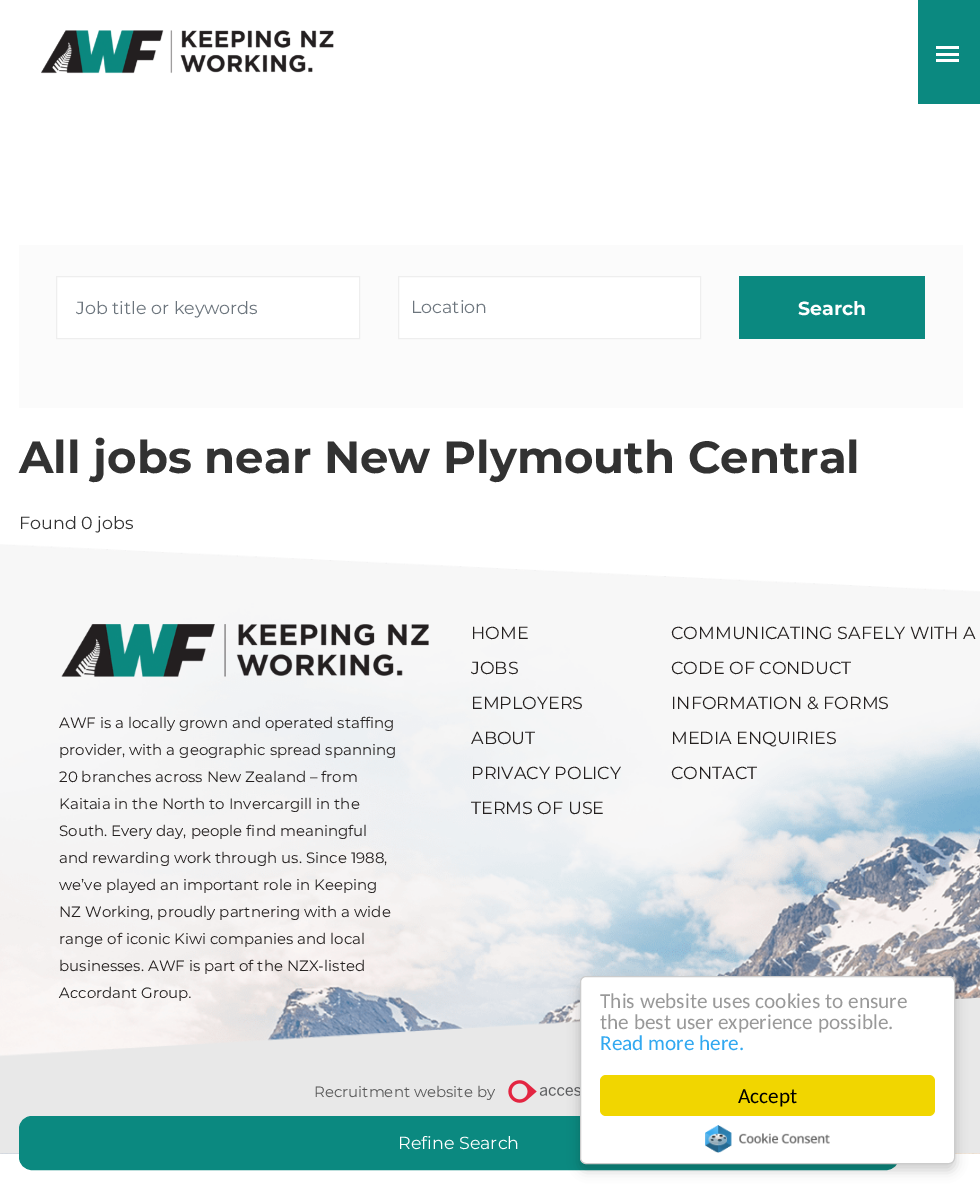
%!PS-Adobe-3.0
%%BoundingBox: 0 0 980 1188
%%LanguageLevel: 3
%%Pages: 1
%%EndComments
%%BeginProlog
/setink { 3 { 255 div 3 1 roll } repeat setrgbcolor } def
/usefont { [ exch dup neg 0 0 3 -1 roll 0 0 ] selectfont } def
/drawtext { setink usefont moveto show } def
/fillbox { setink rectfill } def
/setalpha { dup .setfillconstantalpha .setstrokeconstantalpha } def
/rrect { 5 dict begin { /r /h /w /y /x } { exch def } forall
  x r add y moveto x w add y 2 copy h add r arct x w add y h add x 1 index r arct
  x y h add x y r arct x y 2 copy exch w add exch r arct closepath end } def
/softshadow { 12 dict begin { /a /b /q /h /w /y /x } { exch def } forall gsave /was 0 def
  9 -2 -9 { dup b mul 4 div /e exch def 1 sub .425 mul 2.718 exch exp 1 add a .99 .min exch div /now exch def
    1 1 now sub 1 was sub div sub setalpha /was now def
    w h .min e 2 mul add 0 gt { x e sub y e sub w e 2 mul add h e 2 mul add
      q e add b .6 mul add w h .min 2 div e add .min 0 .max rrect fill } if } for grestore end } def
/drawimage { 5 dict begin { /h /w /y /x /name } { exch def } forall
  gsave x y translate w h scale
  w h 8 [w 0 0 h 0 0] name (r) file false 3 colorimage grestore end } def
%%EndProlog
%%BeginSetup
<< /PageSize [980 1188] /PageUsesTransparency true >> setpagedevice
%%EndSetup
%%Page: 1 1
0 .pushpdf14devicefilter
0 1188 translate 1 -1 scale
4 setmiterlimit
0 0 980 1188 255 255 255 fillbox
(assets/img1.rgb) 41 30 293 44 drawimage
918 0 62 104 11 137 128 fillbox
936 53 23 3 255 255 255 fillbox
936 46 23 3 255 255 255 fillbox
936 59 23 3 255 255 255 fillbox
19 245 944 163 251 251 251 fillbox
255 255 255 setink
56.5 276.5 moveto 359.5 276.5 lineto 359.5 338.5 lineto 56.5 338.5 lineto closepath gsave fill grestore
238 238 238 setink
stroke
(Job title or keywords) 76 314 /Montserrat-Regular 17.5 108 117 125 drawtext
255 255 255 setink
398.5 276.5 moveto 700.5 276.5 lineto 700.5 338.5 lineto 398.5 338.5 lineto closepath gsave fill grestore
238 238 238 setink
stroke
(Location) 411 313 /Montserrat-Regular 17.5 108 117 125 drawtext
739 276 186 63 11 137 128 fillbox
(Search) 798 315 /Montserrat-Bold 19 255 255 255 drawtext
(All jobs near New Plymouth Central) 19 473 /Montserrat-Bold 45 50 50 50 drawtext
(Found 0 jobs) 19 529 /Montserrat-Regular 17.5 50 50 50 drawtext
(assets/img2.rgb) 0 544 980 610 drawimage
(Accordant Group.) 59 998 /Montserrat-Regular 15 36 32 31 drawtext
(assets/img4.rgb) 0 996 980 158 drawimage
11 137 128 setink
19.5 1116.5 879 53 12.5 rrect gsave fill grestore
stroke
(Refine Search) 398 1149 /Montserrat-Regular 17.5 255 255 255 drawtext
(assets/img3.rgb) 61 624 368 53 drawimage
(AWF is a locally grown and operated staffing) 59 728 /Montserrat-Regular 15 36 32 31 drawtext
(provider, with a geographic spread spanning) 59 755 /Montserrat-Regular 15 36 32 31 drawtext
(20 branches across New Zealand – from) 59 782 /Montserrat-Regular 15 36 32 31 drawtext
(Kaitaia in the North to Invercargill in the) 59 809 /Montserrat-Regular 15 36 32 31 drawtext
(South. Every day, people find meaningful) 59 836 /Montserrat-Regular 15 36 32 31 drawtext
(and rewarding work through us. Since 1988,) 59 863 /Montserrat-Regular 15 36 32 31 drawtext
(we’ve played an important role in Keeping) 59 890 /Montserrat-Regular 15 36 32 31 drawtext
(NZ Working, proudly partnering with a wide) 59 917 /Montserrat-Regular 15 36 32 31 drawtext
(range of iconic Kiwi companies and local) 59 944 /Montserrat-Regular 15 36 32 31 drawtext
(businesses. AWF is part of the NZX-listed) 59 971 /Montserrat-Regular 15 36 32 31 drawtext
(HOME) 471 639 /Montserrat-Regular 17.5 36 32 31 drawtext
(COMMUNICATING SAFELY WITH A) 671 639 /Montserrat-Regular 17.5 36 32 31 drawtext
(JOBS) 471 674 /Montserrat-Regular 17.5 36 32 31 drawtext
(CODE OF CONDUCT) 671 674 /Montserrat-Regular 17.5 36 32 31 drawtext
(EMPLOYERS) 471 709 /Montserrat-Regular 17.5 36 32 31 drawtext
(INFORMATION & FORMS) 671 709 /Montserrat-Regular 17.5 36 32 31 drawtext
(ABOUT) 471 744 /Montserrat-Regular 17.5 36 32 31 drawtext
(MEDIA ENQUIRIES) 671 744 /Montserrat-Regular 17.5 36 32 31 drawtext
(PRIVACY POLICY) 471 779 /Montserrat-Regular 17.5 36 32 31 drawtext
(CONTACT) 671 779 /Montserrat-Regular 17.5 36 32 31 drawtext
(TERMS OF USE) 471 814 /Montserrat-Regular 17.5 36 32 31 drawtext
(Recruitment website by) 314 1097 /Montserrat-Regular 15 88 88 88 drawtext
(assets/img5.rgb) 508 1080 72 23 drawimage
0 0 0 setink
580 983 375 187 6 6 0.2 softshadow
255 255 255 setink
580.5 976.5 374 187 5.5 rrect gsave fill grestore
204 204 204 setink
stroke
(This website uses cookies to ensure) 600 1008 /Carlito-Regular 21.25 153 153 153 drawtext
(the best user experience possible.) 600 1029 /Carlito-Regular 21.25 153 153 153 drawtext
(Read more here.) 600 1050 /Carlito-Regular 21.25 49 168 240 drawtext
241 214 0 setink
600 1075 335 41 6 rrect fill
(Accept) 738 1103 /Carlito-Regular 21.25 0 0 0 drawtext
(assets/img6.rgb) 705 1125 125 28 drawimage
.poppdf14devicefilter showpage
%%EOF
